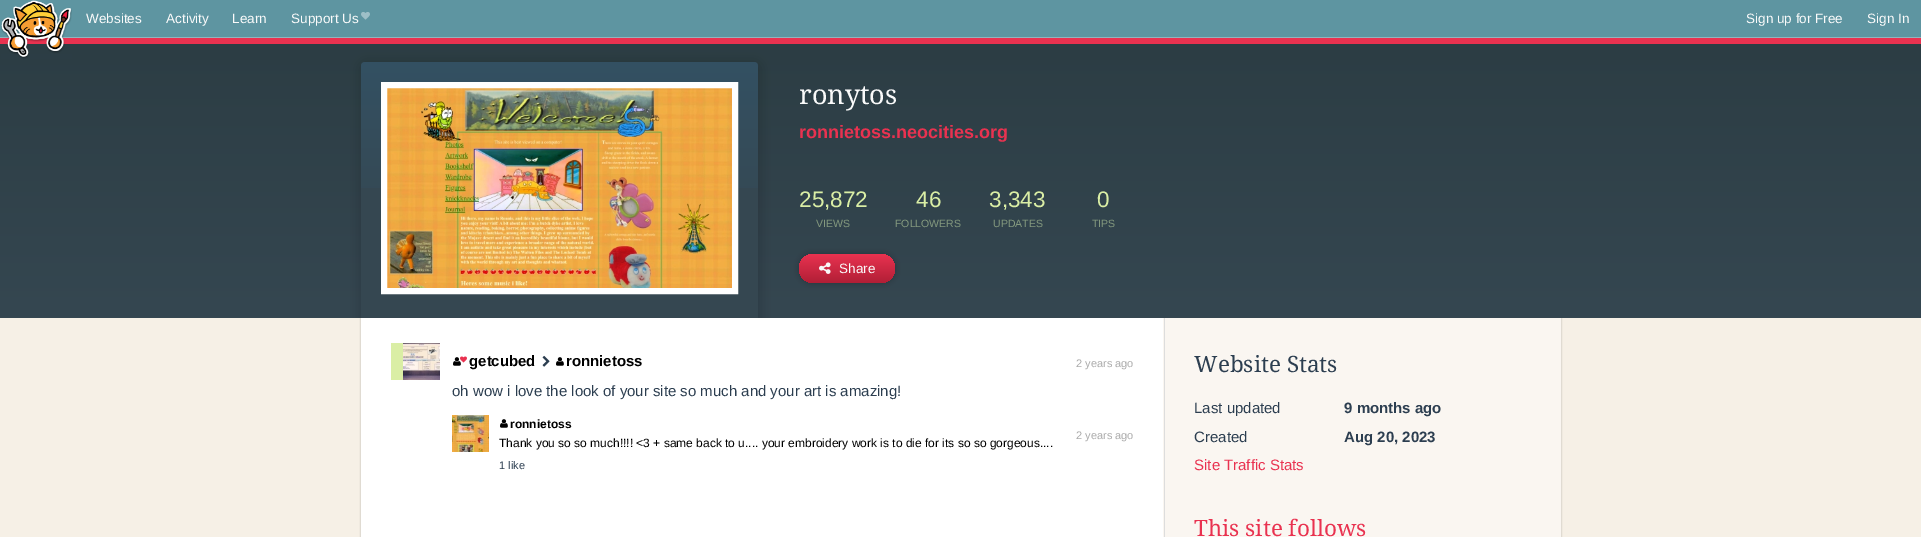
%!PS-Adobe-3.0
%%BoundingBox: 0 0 1921 537
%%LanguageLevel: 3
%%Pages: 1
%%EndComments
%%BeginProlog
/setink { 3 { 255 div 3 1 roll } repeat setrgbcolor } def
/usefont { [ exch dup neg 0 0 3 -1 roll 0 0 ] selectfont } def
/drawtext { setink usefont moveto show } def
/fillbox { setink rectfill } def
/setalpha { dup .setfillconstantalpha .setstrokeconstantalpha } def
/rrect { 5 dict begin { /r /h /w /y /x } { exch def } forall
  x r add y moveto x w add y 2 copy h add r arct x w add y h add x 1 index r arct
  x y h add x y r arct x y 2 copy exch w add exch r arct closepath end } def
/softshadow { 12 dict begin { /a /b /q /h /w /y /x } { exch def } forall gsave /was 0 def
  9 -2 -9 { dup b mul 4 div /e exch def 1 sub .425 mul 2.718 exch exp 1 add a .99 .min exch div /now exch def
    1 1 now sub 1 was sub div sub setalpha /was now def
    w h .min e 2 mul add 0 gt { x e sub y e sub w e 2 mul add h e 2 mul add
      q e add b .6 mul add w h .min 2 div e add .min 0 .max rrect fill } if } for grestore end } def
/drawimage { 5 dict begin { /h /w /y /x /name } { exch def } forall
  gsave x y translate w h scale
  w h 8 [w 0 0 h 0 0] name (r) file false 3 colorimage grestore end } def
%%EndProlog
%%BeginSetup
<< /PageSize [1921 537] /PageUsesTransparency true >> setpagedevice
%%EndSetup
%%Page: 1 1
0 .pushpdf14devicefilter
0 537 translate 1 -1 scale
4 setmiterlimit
0 0 1921 537 246 240 230 fillbox
gsave 0 44 moveto 1921 44 lineto 1921 318 lineto 0 318 lineto closepath clip newpath
<< /ShadingType 2 /ColorSpace /DeviceRGB /Coords [961 22 961 318] /Extend [true true] /Function << /FunctionType 2 /Domain [0 1] /C0 [0.169 0.235 0.263] /C1 [0.208 0.278 0.318] /N 1 >> >> shfill grestore
gsave
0 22 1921 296 rectclip
0 0 0 setink
360 62 401 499 6 6 0.15 softshadow
grestore
0 38 1921 6 233 50 80 fillbox
0 0 1921 37 94 149 161 fillbox
0 37 1921 1 146 180 189 fillbox
(assets/img1.rgb) 1 0 71 59 drawimage
(Websites) 86 23 /LiberationSans-Regular 13.5 250 250 250 drawtext
(Activity) 166 23 /LiberationSans-Regular 13.5 250 250 250 drawtext
(Learn) 232 23 /LiberationSans-Regular 13.5 250 250 250 drawtext
(Support Us) 291 23 /LiberationSans-Regular 13.5 250 250 250 drawtext
(assets/img2.rgb) 361 12 9 8 drawimage
(Sign up for Free) 1746 23 /LiberationSans-Regular 13.5 250 250 250 drawtext
(Sign In) 1867 23 /LiberationSans-Regular 13.5 250 250 250 drawtext
53 71 81 setink
365 62 moveto 754 62 lineto 756 62 758 64 758 66 curveto 758 318 lineto 361 318 lineto 361 66 lineto 361 64 363 62 365 62 curveto closepath fill
(assets/img3.rgb) 361 62 397 126 drawimage
(assets/img4.rgb) 387 88 345 200 drawimage
255 255 255 setink
6 setlinewidth
384 85 351 206 rectstroke
(ronytos) 799 104 /DroidSerif-Regular 27 250 250 250 drawtext
(ronnietoss.neocities.org) 799 138 /LiberationSans-Bold 18 233 50 80 drawtext
(25,872) 799 207 /LiberationSans-Regular 22.5 218 238 165 drawtext
(VIEWS) 816 227 /LiberationSans-Regular 10.5 132 153 126 drawtext
(46) 916 207 /LiberationSans-Regular 22.5 218 238 165 drawtext
(FOLLOWERS) 895 227 /LiberationSans-Regular 10.5 132 153 126 drawtext
(3,343) 989 207 /LiberationSans-Regular 22.5 218 238 165 drawtext
(UPDATES) 993 227 /LiberationSans-Regular 10.5 132 153 126 drawtext
(0) 1097 207 /LiberationSans-Regular 22.5 218 238 165 drawtext
(TIPS) 1092 227 /LiberationSans-Regular 10.5 132 153 126 drawtext
0 0 0 setink
799 254 96 29 14.5 3 0.25 softshadow
gsave 799 254 96 29 14.5 rrect clip newpath
<< /ShadingType 2 /ColorSpace /DeviceRGB /Coords [847 254 847 283] /Extend [true true] /Function << /FunctionType 2 /Domain [0 1] /C0 [0.914 0.196 0.314] /C1 [0.694 0.122 0.212] /N 1 >> >> shfill grestore
(assets/img5.rgb) 819 262 12 12 drawimage
(Share) 839 273 /LiberationSans-Regular 13.5 250 250 250 drawtext
0 0 0 setink
360 318 1202 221 0 0.5 0.1 softshadow
1163 318 398 219 250 246 241 fillbox
1164 318 1 219 221 221 221 fillbox
361 318 802 219 255 255 255 fillbox
391 343 12 37 218 238 165 fillbox
(assets/img6.rgb) 403 343 37 37 drawimage
(assets/img7.rgb) 453 357 8 9 drawimage
(assets/img8.rgb) 460 356 7 7 drawimage
(getcubed) 469 366 /LiberationSans-Bold 15 0 0 0 drawtext
(assets/img9.rgb) 542 355 8 12 drawimage
(assets/img7.rgb) 556 357 8 9 drawimage
(ronnietoss) 566 366 /LiberationSans-Bold 15 0 0 0 drawtext
(2 years ago) 1076 367 /LiberationSans-Regular 11 170 170 170 drawtext
(oh wow i love the look of your site so much and your art is amazing!) 452 396 /LiberationSans-Regular 15 44 62 80 drawtext
(assets/img10.rgb) 452 415 37 37 drawimage
(assets/img7.rgb) 500 419 8 9 drawimage
(ronnietoss) 510 428 /LiberationSans-Bold 12 0 0 0 drawtext
(2 years ago) 1076 439 /LiberationSans-Regular 11 170 170 170 drawtext
(Thank you so so much!!!! <3 + same back to u.... your embroidery work is to die for its so so gorgeous....) 499 447 /LiberationSans-Regular 12 0 0 0 drawtext
(1 like) 499 469 /LiberationSans-Regular 11 44 62 80 drawtext
(Website Stats) 1194 372 /DroidSerif-Regular 22.5 44 62 80 drawtext
(Last updated) 1194 413 /LiberationSans-Regular 15 44 62 80 drawtext
(9 months ago) 1344 413 /LiberationSans-Bold 15 44 62 80 drawtext
(Created) 1194 442 /LiberationSans-Regular 15 44 62 80 drawtext
(Aug 20, 2023) 1344 442 /LiberationSans-Bold 15 44 62 80 drawtext
(Site Traffic Stats) 1194 470 /LiberationSans-Regular 15 233 50 80 drawtext
(This site follows) 1194 536 /DroidSerif-Regular 22.5 233 50 80 drawtext
.poppdf14devicefilter showpage
%%EOF
